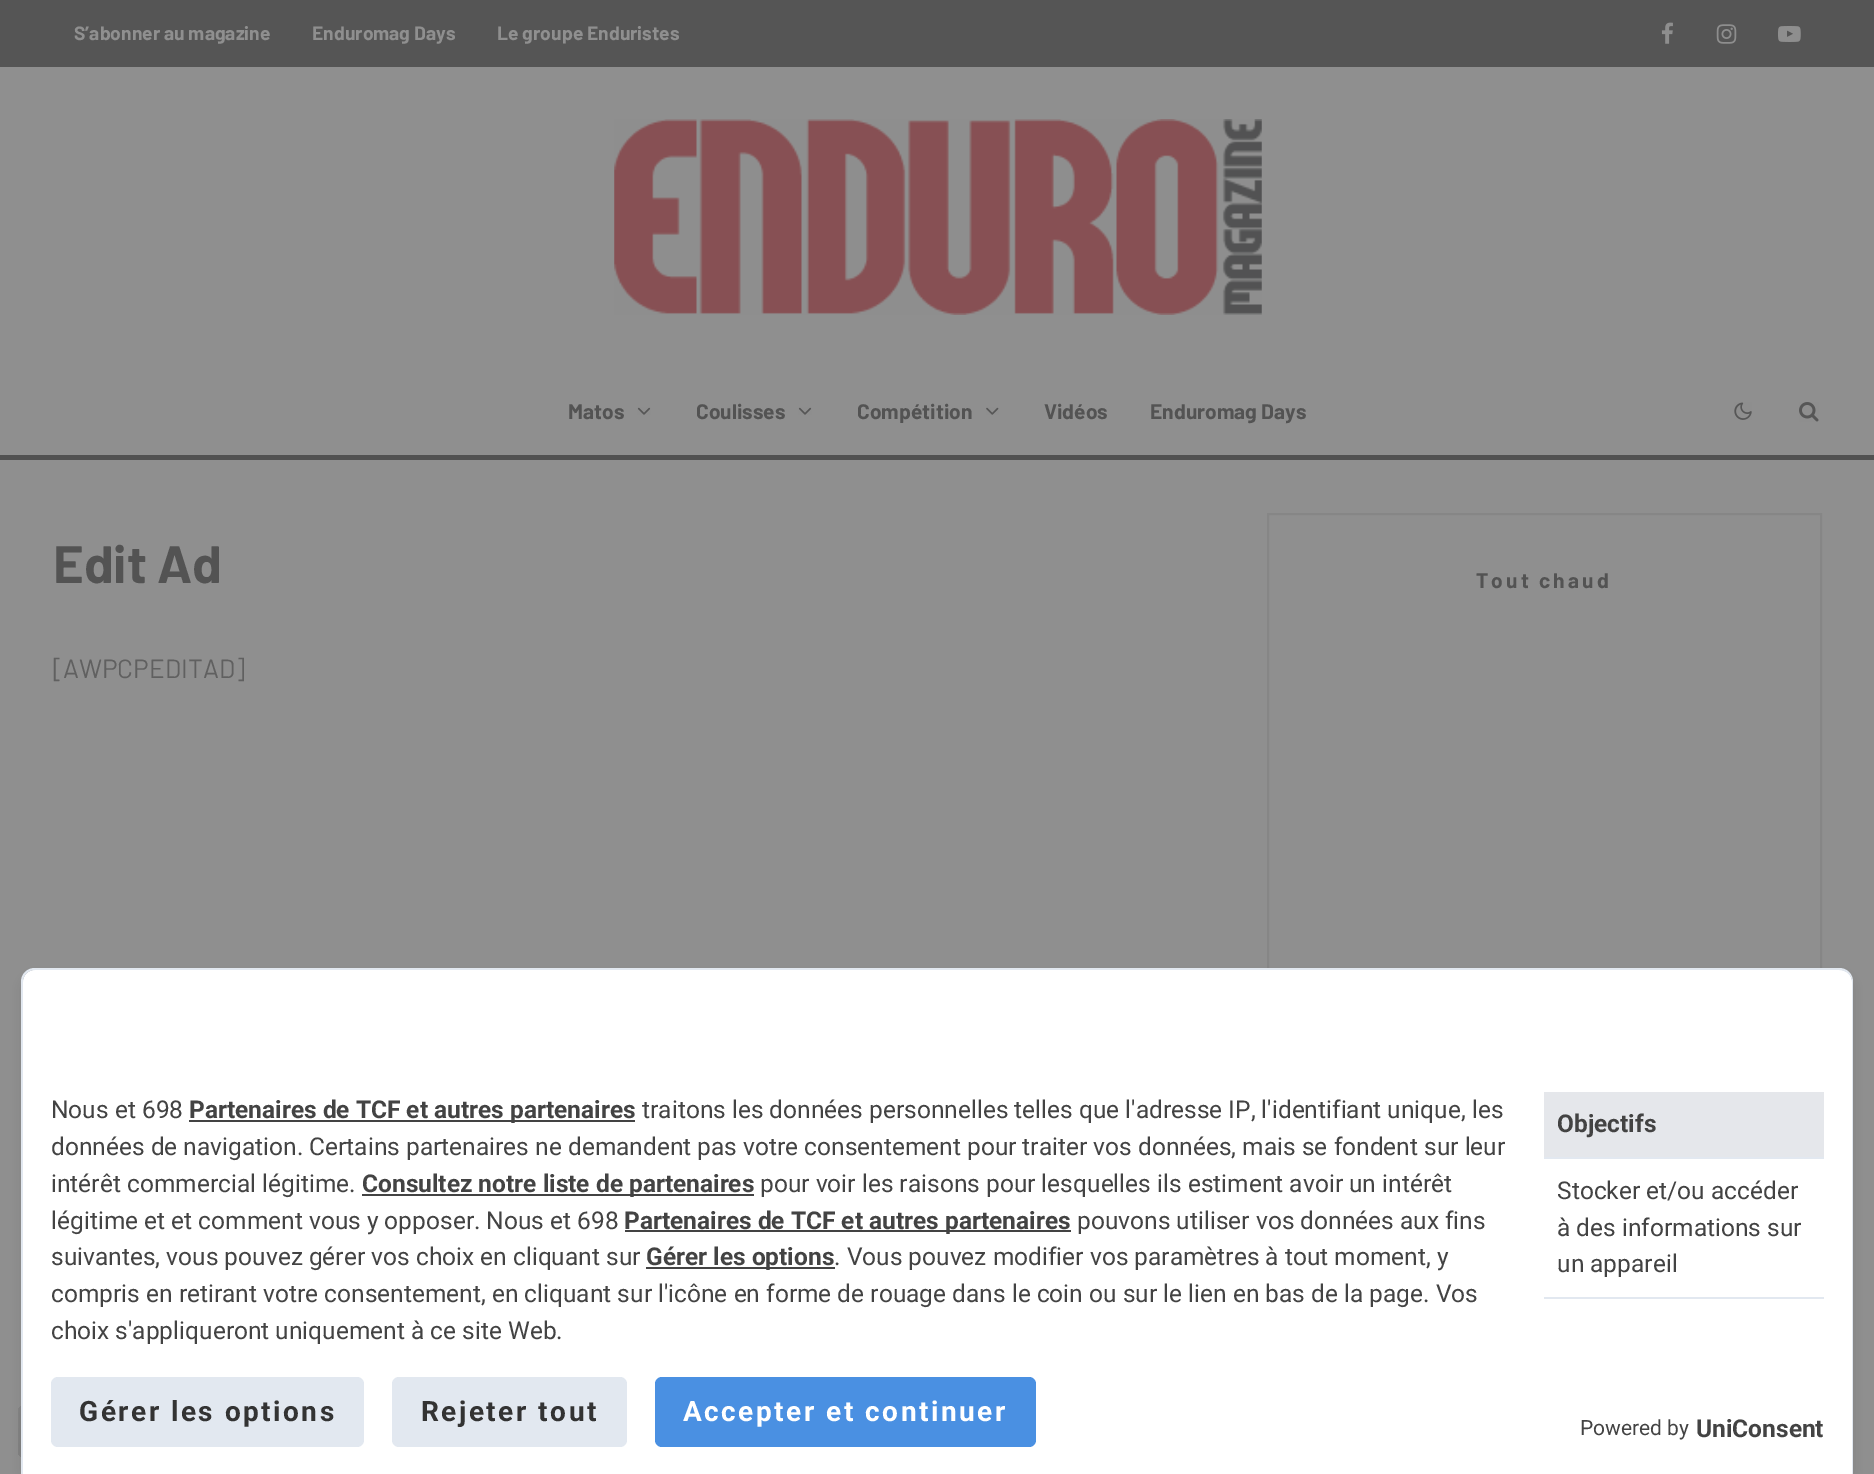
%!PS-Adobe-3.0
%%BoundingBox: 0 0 1874 1474
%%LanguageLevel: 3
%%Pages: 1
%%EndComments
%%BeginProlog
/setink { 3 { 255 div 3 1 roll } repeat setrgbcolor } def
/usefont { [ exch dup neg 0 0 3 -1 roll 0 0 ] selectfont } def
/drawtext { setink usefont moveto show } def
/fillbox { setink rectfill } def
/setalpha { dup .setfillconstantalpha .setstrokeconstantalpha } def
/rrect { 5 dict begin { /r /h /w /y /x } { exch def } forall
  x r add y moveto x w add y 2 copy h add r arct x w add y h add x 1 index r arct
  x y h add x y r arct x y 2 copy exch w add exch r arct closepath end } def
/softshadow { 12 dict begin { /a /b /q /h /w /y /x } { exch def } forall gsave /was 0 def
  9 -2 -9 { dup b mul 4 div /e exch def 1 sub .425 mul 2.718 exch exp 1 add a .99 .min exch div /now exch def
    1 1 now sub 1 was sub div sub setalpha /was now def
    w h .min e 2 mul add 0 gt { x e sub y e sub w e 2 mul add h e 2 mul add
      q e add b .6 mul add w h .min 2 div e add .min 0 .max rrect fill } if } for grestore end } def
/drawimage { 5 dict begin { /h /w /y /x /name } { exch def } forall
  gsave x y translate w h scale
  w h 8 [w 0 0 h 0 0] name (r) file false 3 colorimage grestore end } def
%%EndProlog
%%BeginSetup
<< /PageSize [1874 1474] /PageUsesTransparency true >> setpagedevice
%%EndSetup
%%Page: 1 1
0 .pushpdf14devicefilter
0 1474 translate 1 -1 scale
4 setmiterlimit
0 0 1874 1474 143 143 143 fillbox
0 0 1874 67 85 85 85 fillbox
(S’abonner au magazine) 74 40 /Barlow-Bold 19.25 143 143 143 drawtext
(Enduromag Days) 312 40 /Barlow-Bold 19.25 143 143 143 drawtext
(Le groupe Enduristes) 497 40 /Barlow-Bold 19.25 143 143 143 drawtext
(assets/img1.rgb) 1661 22 12 22 drawimage
(assets/img2.rgb) 1716 24 21 20 drawimage
(assets/img3.rgb) 1778 26 23 16 drawimage
(assets/img4.rgb) 614 119 648 196 drawimage
0 455 1874 5 81 81 81 fillbox
(Matos) 568 419 /Barlow-Bold 21 83 83 83 drawtext
(assets/img5.rgb) 637 407 14 8 drawimage
(Coulisses) 696 419 /Barlow-Bold 21 83 83 83 drawtext
(assets/img5.rgb) 798 407 14 8 drawimage
(Compétition) 857 419 /Barlow-Bold 21 83 83 83 drawtext
(assets/img6.rgb) 986 407 13 8 drawimage
(Vidéos) 1044 419 /Barlow-Bold 21 83 83 83 drawtext
(Enduromag Days) 1150 419 /Barlow-Bold 21 83 83 83 drawtext
(assets/img7.rgb) 1734 402 18 18 drawimage
(assets/img8.rgb) 1799 402 20 20 drawimage
(Edit Ad) 53 583 /Barlow-Bold 52.5 83 83 83 drawtext
([AWPCPEDITAD]) 53 678 /Barlow-Regular 26.25 96 96 96 drawtext
134 134 134 setink
2 setlinewidth
1268 514 553 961 rectstroke
/Barlow-Bold 21 usefont
83 83 83 setink
1476 588 moveto 3.1 0 (Tout chaud) ashow
gsave 18 1405 52 53 7 rrect clip newpath
<< /ShadingType 2 /ColorSpace /DeviceRGB /Coords [22 1461 66 1402] /Extend [true true] /Function << /FunctionType 2 /Domain [0 1] /C0 [0.506 0.506 0.506] /C1 [0.529 0.529 0.529] /N 1 >> >> shfill grestore
0 0 0 setink
23 977 1829 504 12 5 0.1 softshadow
255 255 255 setink
35 970 moveto 1840 970 lineto 1846.5 970 1852 975.5 1852 982 curveto 1852 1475 lineto 23 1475 lineto 23 982 lineto 23 975.5 28.5 970 35 970 curveto closepath fill
226 232 240 setink
35 968 moveto 1839 968 lineto 1847 968 1853 974 1853 982 curveto 1853 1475 lineto 21 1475 lineto 21 982 lineto 21 974 27 968 35 968 curveto closepath 35 970 moveto 1839 970 lineto 1846 970 1852 975 1852 982 curveto 1852 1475 lineto 23 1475 lineto 23 982 lineto 23 975 28 970 35 970 curveto closepath eofill
(Nous et 698) 51 1118 /Roboto-Regular 24.5 67 67 67 drawtext
189 1120 446 2 67 67 67 fillbox
(Partenaires de TCF et autres partenaires) 189 1118 /Roboto-Bold 24.5 67 67 67 drawtext
(traitons les données personnelles telles que l'adresse IP, l'identifiant unique, les) 642 1118 /Roboto-Regular 24.5 67 67 67 drawtext
(données de navigation. Certains partenaires ne demandent pas votre consentement pour traiter vos données, mais se fondent sur leur) 51 1155 /Roboto-Regular 24.5 67 67 67 drawtext
(intérêt commercial légitime.) 51 1192 /Roboto-Regular 24.5 67 67 67 drawtext
362 1194 392 2 67 67 67 fillbox
(Consultez notre liste de partenaires) 362 1192 /Roboto-Bold 24.5 67 67 67 drawtext
(pour voir les raisons pour lesquelles ils estiment avoir un intérêt) 760 1192 /Roboto-Regular 24.5 67 67 67 drawtext
(légitime et et comment vous y opposer. Nous et 698) 51 1229 /Roboto-Regular 24.5 67 67 67 drawtext
625 1230 446 2 67 67 67 fillbox
(Partenaires de TCF et autres partenaires) 624 1229 /Roboto-Bold 24.5 67 67 67 drawtext
(pouvons utiliser vos données aux fins) 1077 1229 /Roboto-Regular 24.5 67 67 67 drawtext
(suivantes, vous pouvez gérer vos choix en cliquant sur) 51 1265 /Roboto-Regular 24.5 67 67 67 drawtext
646 1267 189 2 67 67 67 fillbox
(Gérer les options) 646 1265 /Roboto-Bold 24.5 67 67 67 drawtext
(. Vous pouvez modifier vos paramètres à tout moment, y) 834 1265 /Roboto-Regular 24.5 67 67 67 drawtext
(compris en retirant votre consentement, en cliquant sur l'icône en forme de rouage dans le coin ou sur le lien en bas de la page. Vos) 51 1302 /Roboto-Regular 24.5 67 67 67 drawtext
(choix s'appliqueront uniquement à ce site Web.) 51 1339 /Roboto-Regular 24.5 67 67 67 drawtext
1544 1092 280 65 229 231 235 fillbox
1544 1157 280 2 226 232 240 fillbox
(Objectifs) 1557 1132 /Roboto-Bold 24.5 67 67 67 drawtext
1544 1297 280 2 226 232 240 fillbox
(Stocker et/ou accéder) 1557 1199 /Roboto-Regular 24.5 67 67 67 drawtext
(à des informations sur) 1557 1236 /Roboto-Regular 24.5 67 67 67 drawtext
(un appareil) 1557 1272 /Roboto-Regular 24.5 67 67 67 drawtext
226 232 240 setink
51 1377 313 70 7 rrect fill
/Roboto-Bold 28 usefont
51 51 51 setink
79 1421 moveto 2.5 0 (Gérer les options) ashow
226 232 240 setink
392 1377 235 70 7 rrect fill
51 51 51 setink
421 1421 moveto 2.5 0 (Rejeter tout) ashow
74 144 226 setink
655 1377 381 70 7 rrect fill
255 255 255 setink
683 1421 moveto 2.5 0 (Accepter et continuer) ashow
(Powered by) 1580 1435 /Roboto-Regular 21 67 67 67 drawtext
(UniConsent) 1696 1437 /Roboto-Bold 24.5 67 67 67 drawtext
.poppdf14devicefilter showpage
%%EOF
